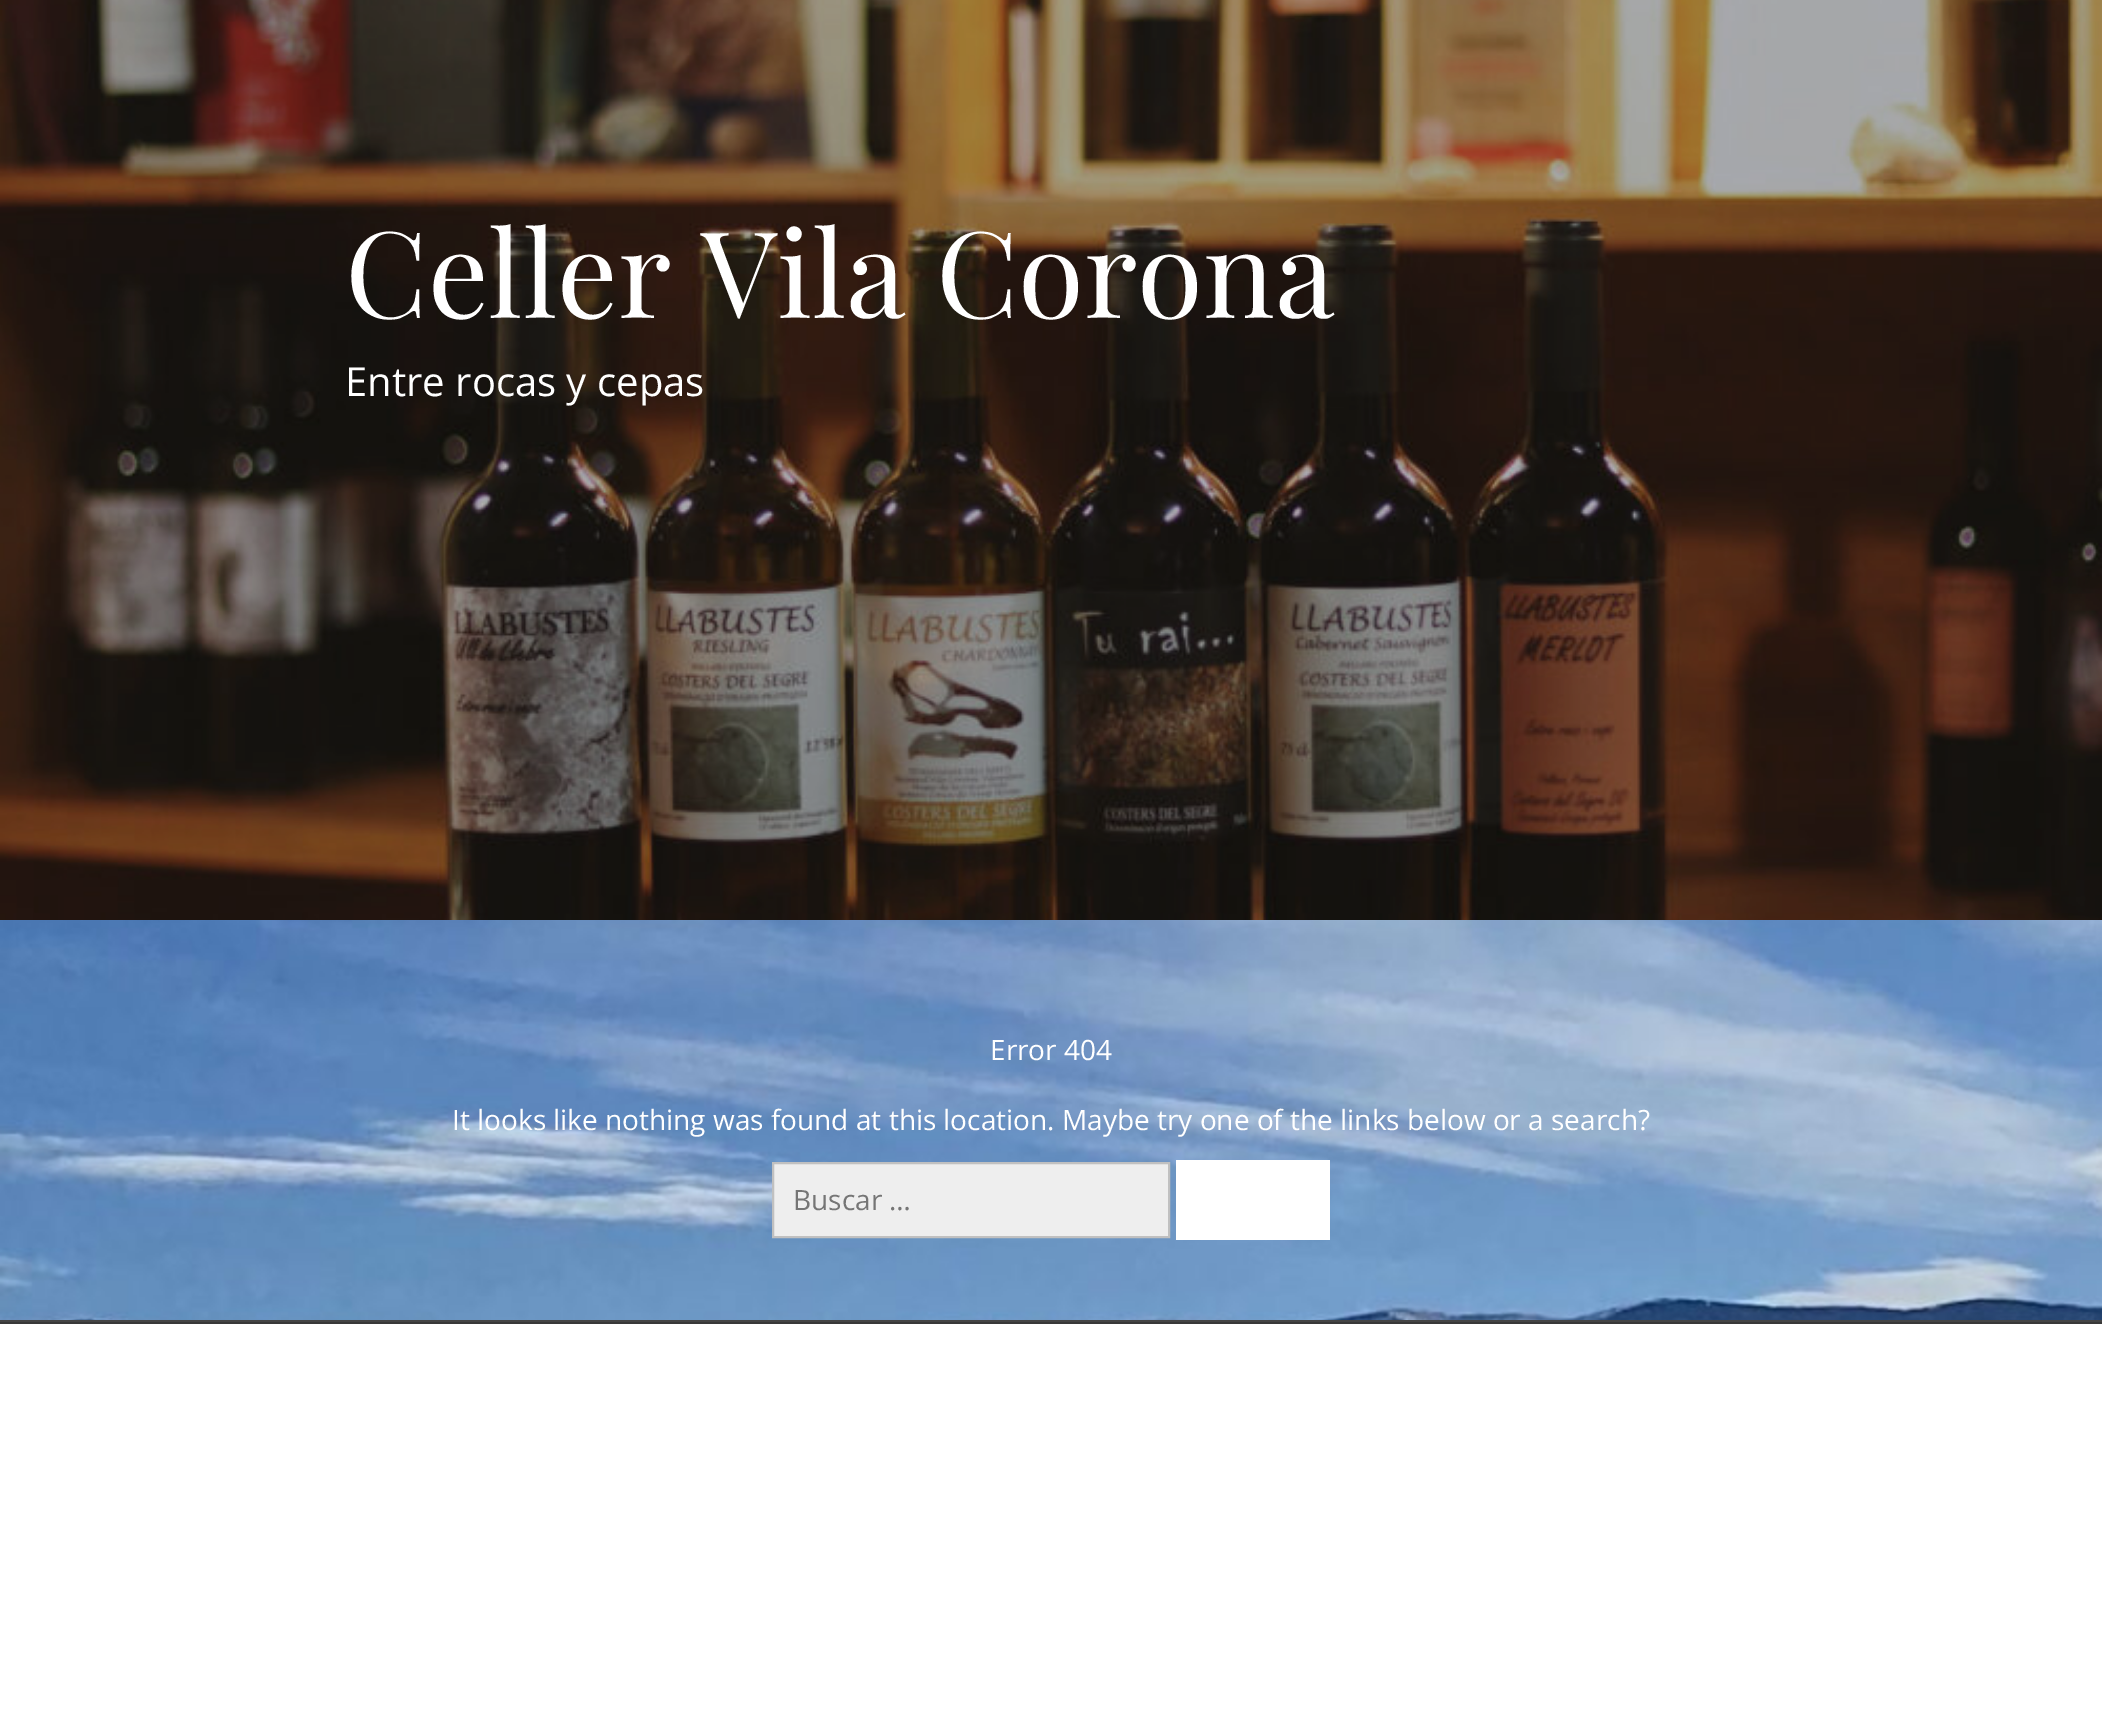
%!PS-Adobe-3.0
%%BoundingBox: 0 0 2102 1734
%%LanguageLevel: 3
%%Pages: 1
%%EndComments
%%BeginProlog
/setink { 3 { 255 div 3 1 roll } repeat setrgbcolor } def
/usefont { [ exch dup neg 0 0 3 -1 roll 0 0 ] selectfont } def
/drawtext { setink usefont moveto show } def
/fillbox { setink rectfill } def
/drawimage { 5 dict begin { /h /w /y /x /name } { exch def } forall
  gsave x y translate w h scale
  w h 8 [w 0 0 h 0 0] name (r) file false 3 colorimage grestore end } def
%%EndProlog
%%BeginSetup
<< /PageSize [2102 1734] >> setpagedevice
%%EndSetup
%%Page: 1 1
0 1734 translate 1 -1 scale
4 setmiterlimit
0 0 2102 1734 255 255 255 fillbox
(assets/img1.rgb) 0 920 2102 400 drawimage
(assets/img2.rgb) 0 0 2102 920 drawimage
(Celler Vila Corona) 345 318 /PlayfairDisplay-Regular 120 255 255 255 drawtext
(Entre rocas y cepas) 345 396 /OpenSans-Regular 40 255 255 255 drawtext
(Error 404) 990 1060 /OpenSans-Regular 28 255 255 255 drawtext
(It looks like nothing was found at this location. Maybe try one of the links below or a search?) 452 1130 /OpenSans-Regular 28 255 255 255 drawtext
238 238 238 setink
773 1163 moveto 1169 1163 lineto 1169 1237 lineto 773 1237 lineto closepath gsave fill grestore
192 192 192 setink
2 setlinewidth
stroke
(Buscar …) 793 1210 /OpenSans-Regular 28 117 117 117 drawtext
1176 1160 154 80 255 255 255 fillbox
0 1320 2102 2 68 68 68 fillbox
0 1322 2102 2 56 56 56 fillbox
showpage
%%EOF
